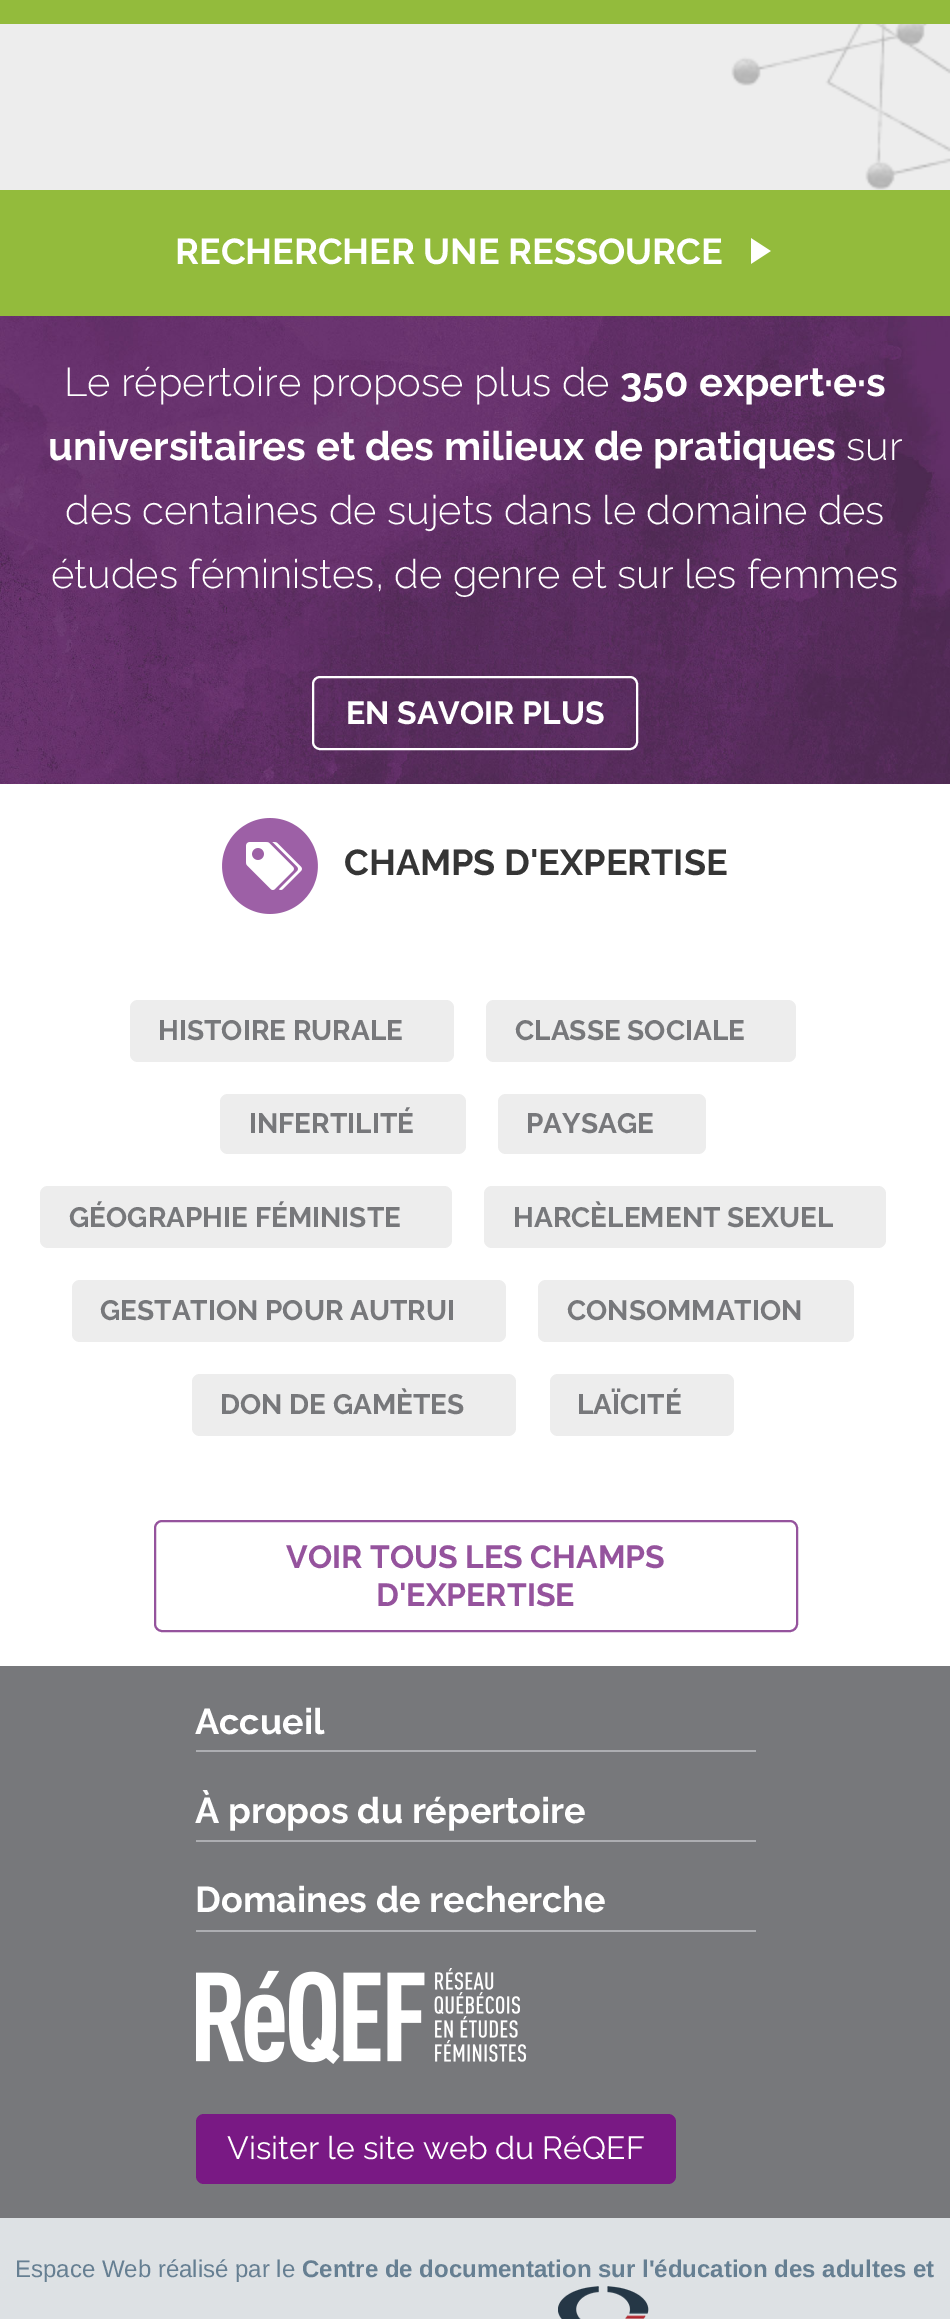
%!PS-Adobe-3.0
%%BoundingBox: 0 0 950 2319
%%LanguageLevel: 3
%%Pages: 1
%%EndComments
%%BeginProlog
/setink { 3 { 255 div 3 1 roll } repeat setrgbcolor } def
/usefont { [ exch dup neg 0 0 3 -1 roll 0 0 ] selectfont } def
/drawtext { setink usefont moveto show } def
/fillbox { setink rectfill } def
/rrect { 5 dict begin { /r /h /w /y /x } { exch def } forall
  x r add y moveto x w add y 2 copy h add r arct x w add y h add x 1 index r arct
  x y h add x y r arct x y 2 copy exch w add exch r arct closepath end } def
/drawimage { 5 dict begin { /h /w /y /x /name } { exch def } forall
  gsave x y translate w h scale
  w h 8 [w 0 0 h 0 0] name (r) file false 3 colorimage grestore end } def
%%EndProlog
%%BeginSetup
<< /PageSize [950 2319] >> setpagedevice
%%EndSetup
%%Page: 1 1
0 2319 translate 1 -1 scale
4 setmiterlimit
0 0 950 2319 255 255 255 fillbox
0 0 950 24 147 187 60 fillbox
0 24 731 166 237 237 237 fillbox
(assets/img1.rgb) 731 24 219 166 drawimage
0 190 950 126 147 187 60 fillbox
(RECHERCHER UNE RESSOURCE) 175 264 /Raleway-Bold 36 255 255 255 drawtext
(assets/img2.rgb) 751 238 20 26 drawimage
(assets/img3.rgb) 0 316 950 468 drawimage
(Le répertoire propose plus de) 64 396 /Raleway-Light 40 255 255 255 drawtext
(350 expert·e·s) 620 396 /Raleway-Bold 40 255 255 255 drawtext
(universitaires et des milieux de pratiques) 48 460 /Raleway-Bold 40 255 255 255 drawtext
(sur) 846 460 /Raleway-Light 40 255 255 255 drawtext
(des centaines de sujets dans le domaine des) 65 524 /Raleway-Light 40 255 255 255 drawtext
(études féministes, de genre et sur les femmes) 51 588 /Raleway-Light 40 255 255 255 drawtext
2 setlinewidth
313 677 324 72 7 rrect stroke
(EN SAVOIR PLUS) 346 724 /Raleway-Bold 32 255 255 255 drawtext
(assets/img4.rgb) 222 818 96 96 drawimage
(CHAMPS D'EXPERTISE) 344 875 /Raleway-Bold 36 53 53 53 drawtext
237 237 237 setink
130 1000 324 62 8 rrect fill
(HISTOIRE RURALE) 158 1040 /Raleway-Bold 28 119 120 123 drawtext
237 237 237 setink
486 1000 310 62 8 rrect fill
(CLASSE SOCIALE) 515 1040 /Raleway-Bold 28 119 120 123 drawtext
237 237 237 setink
220 1094 246 60 8 rrect fill
(INFERTILITÉ) 249 1133 /Raleway-Bold 28 119 120 123 drawtext
237 237 237 setink
498 1094 208 60 8 rrect fill
(PAYSAGE) 526 1133 /Raleway-Bold 28 119 120 123 drawtext
237 237 237 setink
40 1186 412 62 8 rrect fill
(GÉOGRAPHIE FÉMINISTE) 69 1227 /Raleway-Bold 28 119 120 123 drawtext
237 237 237 setink
484 1186 402 62 8 rrect fill
(HARCÈLEMENT SEXUEL) 513 1227 /Raleway-Bold 28 119 120 123 drawtext
237 237 237 setink
72 1280 434 62 8 rrect fill
(GESTATION POUR AUTRUI) 100 1320 /Raleway-Bold 28 119 120 123 drawtext
237 237 237 setink
538 1280 316 62 8 rrect fill
(CONSOMMATION) 567 1320 /Raleway-Bold 28 119 120 123 drawtext
237 237 237 setink
192 1374 324 62 8 rrect fill
(DON DE GAMÈTES) 220 1414 /Raleway-Bold 28 119 120 123 drawtext
237 237 237 setink
550 1374 184 62 8 rrect fill
(LAÏCITÉ) 577 1414 /Raleway-Bold 28 119 120 123 drawtext
149 83 157 setink
155 1521 642 110 7 rrect stroke
(VOIR TOUS LES CHAMPS) 286 1568 /Raleway-Bold 32 149 83 157 drawtext
(D'EXPERTISE) 376 1606 /Raleway-Bold 32 149 83 157 drawtext
0 1666 950 552 119 120 123 fillbox
(Accueil) 195 1734 /Raleway-Bold 36 255 255 255 drawtext
196 1750 560 2 173 174 178 fillbox
(À propos du répertoire) 195 1823 /Raleway-Bold 36 255 255 255 drawtext
196 1840 560 2 173 174 178 fillbox
(Domaines de recherche) 195 1912 /Raleway-Bold 36 255 255 255 drawtext
196 1930 560 2 173 174 178 fillbox
(assets/img5.rgb) 196 1968 330 96 drawimage
121 25 132 setink
196 2114 480 70 8 rrect fill
(Visiter le site web du RéQEF) 227 2159 /Raleway-Regular 32 255 255 255 drawtext
0 2218 950 101 221 225 228 fillbox
(Espace Web réalisé par le) 15 2277 /LiberationSans-Regular 24 102 127 146 drawtext
(Centre de documentation sur l'éducation des adultes et) 302 2277 /LiberationSans-Bold 24 102 127 146 drawtext
(assets/img6.rgb) 558 2286 91 33 drawimage
showpage
%%EOF
